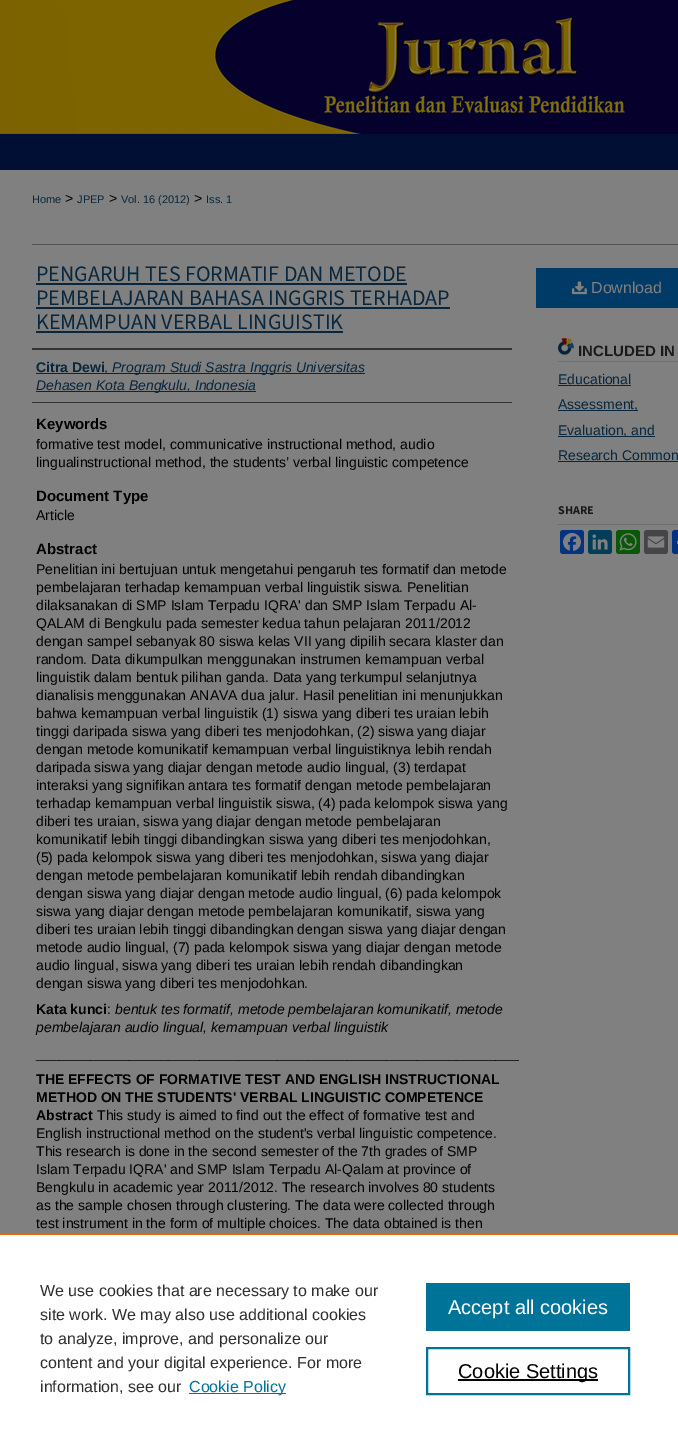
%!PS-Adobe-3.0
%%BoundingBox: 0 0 678 1443
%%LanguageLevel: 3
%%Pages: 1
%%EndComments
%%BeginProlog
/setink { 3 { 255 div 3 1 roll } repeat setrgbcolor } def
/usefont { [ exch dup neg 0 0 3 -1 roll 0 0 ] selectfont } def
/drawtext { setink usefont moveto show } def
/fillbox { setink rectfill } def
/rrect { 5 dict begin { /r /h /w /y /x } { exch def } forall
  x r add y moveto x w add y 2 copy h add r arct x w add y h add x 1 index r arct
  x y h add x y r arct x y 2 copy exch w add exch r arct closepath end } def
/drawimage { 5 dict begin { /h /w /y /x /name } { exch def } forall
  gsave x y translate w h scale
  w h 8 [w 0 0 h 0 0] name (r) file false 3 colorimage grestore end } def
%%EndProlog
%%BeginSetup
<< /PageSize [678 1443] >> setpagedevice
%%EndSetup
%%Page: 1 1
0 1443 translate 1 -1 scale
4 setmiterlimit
0 0 678 1443 1 15 52 fillbox
(assets/img1.rgb) 0 0 678 134 drawimage
0 170 678 1063 128 128 128 fillbox
(Home) 32 203 /LiberationSans-Regular 11 8 39 62 drawtext
(>) 65 203 /LiberationSans-Regular 14 0 0 0 drawtext
(JPEP) 77 203 /LiberationSans-Regular 11 8 39 62 drawtext
(>) 109 203 /LiberationSans-Regular 14 0 0 0 drawtext
(Vol. 16 \(2012\)) 121 203 /LiberationSans-Regular 11 8 39 62 drawtext
(>) 194 203 /LiberationSans-Regular 14 0 0 0 drawtext
(Iss. 1) 206 203 /LiberationSans-Regular 11 8 39 62 drawtext
32 244 646 1 85 85 85 fillbox
(PENGARUH TES FORMATIF DAN METODE) 36 281 /SourceSans3-Regular 22 8 39 62 drawtext
36 283 371 2 8 39 62 fillbox
(PEMBELAJARAN BAHASA INGGRIS TERHADAP) 36 305 /SourceSans3-Regular 22 8 39 62 drawtext
36 307 414 2 8 39 62 fillbox
(KEMAMPUAN VERBAL LINGUISTIK) 36 329 /SourceSans3-Regular 22 8 39 62 drawtext
36 331 307 2 8 39 62 fillbox
32 348 480 2 51 51 51 fillbox
32 402 480 1 51 51 51 fillbox
(Citra Dewi) 36 372 /LiberationSans-Bold 14 8 39 62 drawtext
36 373 329 1 8 39 62 fillbox
(,) 104 372 /LiberationSans-Regular 14 8 39 62 drawtext
(Program Studi Sastra Inggris Universitas) 112 372 /LiberationSans-Italic 14 8 39 62 drawtext
36 391 220 1 8 39 62 fillbox
(Dehasen Kota Bengkulu, Indonesia) 36 390 /LiberationSans-Italic 14 8 39 62 drawtext
(Keywords) 36 429 /LiberationSans-Bold 15 0 0 0 drawtext
(formative test model, communicative instructional method, audio) 36 449 /LiberationSans-Regular 14 0 0 0 drawtext
(lingualinstructional method, the students’ verbal linguistic competence) 36 467 /LiberationSans-Regular 14 0 0 0 drawtext
(Document Type) 36 501 /LiberationSans-Bold 15 0 0 0 drawtext
(Article) 36 520 /LiberationSans-Regular 14 0 0 0 drawtext
(Abstract) 36 554 /LiberationSans-Bold 15 0 0 0 drawtext
(Penelitian ini bertujuan untuk mengetahui pengaruh tes formatif dan metode) 36 574 /LiberationSans-Regular 14 0 0 0 drawtext
(pembelajaran terhadap kemampuan verbal linguistik siswa. Penelitian) 36 592 /LiberationSans-Regular 14 0 0 0 drawtext
(dilaksanakan di SMP Islam Terpadu IQRA' dan SMP Islam Terpadu Al-) 36 610 /LiberationSans-Regular 14 0 0 0 drawtext
(QALAM di Bengkulu pada semester kedua tahun pelajaran 2011/2012) 36 628 /LiberationSans-Regular 14 0 0 0 drawtext
(dengan sampel sebanyak 80 siswa kelas VII yang dipilih secara klaster dan) 36 646 /LiberationSans-Regular 14 0 0 0 drawtext
(random. Data dikumpulkan menggunakan instrumen kemampuan verbal) 36 664 /LiberationSans-Regular 14 0 0 0 drawtext
(linguistik dalam bentuk pilihan ganda. Data yang terkumpul selanjutnya) 36 682 /LiberationSans-Regular 14 0 0 0 drawtext
(dianalisis menggunakan ANAVA dua jalur. Hasil penelitian ini menunjukkan) 36 700 /LiberationSans-Regular 14 0 0 0 drawtext
(bahwa kemampuan verbal linguistik \(1\) siswa yang diberi tes uraian lebih) 36 718 /LiberationSans-Regular 14 0 0 0 drawtext
(tinggi daripada siswa yang diberi tes menjodohkan, \(2\) siswa yang diajar) 36 736 /LiberationSans-Regular 14 0 0 0 drawtext
(dengan metode komunikatif kemampuan verbal linguistiknya lebih rendah) 36 754 /LiberationSans-Regular 14 0 0 0 drawtext
(daripada siswa yang diajar dengan metode audio lingual, \(3\) terdapat) 36 772 /LiberationSans-Regular 14 0 0 0 drawtext
(interaksi yang signifikan antara tes formatif dengan metode pembelajaran) 36 790 /LiberationSans-Regular 14 0 0 0 drawtext
(terhadap kemampuan verbal linguistik siswa, \(4\) pada kelompok siswa yang) 36 808 /LiberationSans-Regular 14 0 0 0 drawtext
(diberi tes uraian, siswa yang diajar dengan metode pembelajaran) 36 826 /LiberationSans-Regular 14 0 0 0 drawtext
(komunikatif lebih tinggi dibandingkan siswa yang diberi tes menjodohkan,) 36 844 /LiberationSans-Regular 14 0 0 0 drawtext
(\(5\) pada kelompok siswa yang diberi tes menjodohkan, siswa yang diajar) 36 862 /LiberationSans-Regular 14 0 0 0 drawtext
(dengan metode pembelajaran komunikatif lebih rendah dibandingkan) 36 880 /LiberationSans-Regular 14 0 0 0 drawtext
(dengan siswa yang diajar dengan metode audio lingual, \(6\) pada kelompok) 36 898 /LiberationSans-Regular 14 0 0 0 drawtext
(siswa yang diajar dengan metode pembelajaran komunikatif, siswa yang) 36 916 /LiberationSans-Regular 14 0 0 0 drawtext
(diberi tes uraian lebih tinggi dibandingkan dengan siswa yang diajar dengan) 36 934 /LiberationSans-Regular 14 0 0 0 drawtext
(metode audio lingual, \(7\) pada kelompok siswa yang diajar dengan metode) 36 952 /LiberationSans-Regular 14 0 0 0 drawtext
(audio lingual, siswa yang diberi tes uraian lebih rendah dibandingkan) 36 970 /LiberationSans-Regular 14 0 0 0 drawtext
(dengan siswa yang diberi tes menjodohkan.) 36 988 /LiberationSans-Regular 14 0 0 0 drawtext
(Kata kunci) 36 1014 /LiberationSans-Bold 14 0 0 0 drawtext
(:) 107 1014 /LiberationSans-Regular 14 0 0 0 drawtext
(bentuk tes formatif, metode pembelajaran komunikatif, metode) 115 1014 /LiberationSans-Italic 14 0 0 0 drawtext
(pembelajaran audio lingual, kemampuan verbal linguistik) 36 1032 /LiberationSans-Italic 14 0 0 0 drawtext
(______________________________________________________________) 36 1058 /LiberationSans-Regular 14 0 0 0 drawtext
(THE EFFECTS OF FORMATIVE TEST AND ENGLISH INSTRUCTIONAL) 36 1084 /LiberationSans-Bold 14 0 0 0 drawtext
(METHOD ON THE STUDENTS' VERBAL LINGUISTIC COMPETENCE) 36 1102 /LiberationSans-Bold 14 0 0 0 drawtext
(Abstract) 36 1120 /LiberationSans-Bold 14 0 0 0 drawtext
(This study is aimed to find out the effect of formative test and) 97 1120 /LiberationSans-Regular 14 0 0 0 drawtext
(English instructional method on the student's verbal linguistic competence.) 36 1138 /LiberationSans-Regular 14 0 0 0 drawtext
(This research is done in the second semester of the 7th grades of SMP) 36 1156 /LiberationSans-Regular 14 0 0 0 drawtext
(Islam Terpadu IQRA' and SMP Islam Terpadu Al-Qalam at province of) 36 1174 /LiberationSans-Regular 14 0 0 0 drawtext
(Bengkulu in academic year 2011/2012. The research involves 80 students) 36 1192 /LiberationSans-Regular 14 0 0 0 drawtext
(as the sample chosen through clustering. The data were collected through) 36 1210 /LiberationSans-Regular 14 0 0 0 drawtext
(test instrument in the form of multiple choices. The data obtained is then) 36 1228 /LiberationSans-Regular 14 0 0 0 drawtext
536 268 142 40 0 58 102 fillbox
(assets/img2.rgb) 572 281 15 14 drawimage
(Download) 591 293 /LiberationSans-Regular 16 128 128 128 drawtext
(assets/img3.rgb) 558 338 16 17 drawimage
558 361 120 1 111 111 111 fillbox
(INCLUDED IN) 578 356 /LiberationSans-Bold 15 26 26 26 drawtext
(Educational) 558 384 /LiberationSans-Regular 14 8 39 62 drawtext
558 385 73 1 8 39 62 fillbox
558 410 80 1 8 39 62 fillbox
(Assessment,) 558 409 /LiberationSans-Regular 14 8 39 62 drawtext
558 436 97 1 8 39 62 fillbox
(Evaluation, and) 558 435 /LiberationSans-Regular 14 8 39 62 drawtext
(Research Common) 558 460 /LiberationSans-Regular 14 8 39 62 drawtext
558 461 120 1 8 39 62 fillbox
558 524 120 1 111 111 111 fillbox
(SHARE) 558 514 /SourceSans3-Bold 12 26 26 26 drawtext
4 51 128 setink
560 530 24 24 3 rrect fill
(assets/img4.rgb) 563 533 18 18 drawimage
0 62 91 setink
588 530 24 24 3 rrect fill
(assets/img5.rgb) 592 534 16 16 drawimage
9 88 5 setink
616 530 24 24 3 rrect fill
(assets/img6.rgb) 619 533 18 18 drawimage
68 69 72 setink
644 530 24 24 3 rrect fill
(assets/img7.rgb) 647 536 18 12 drawimage
1 51 128 setink
672 530 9 24 3 rrect fill
677 541 1 3 128 128 128 fillbox
0 1235 678 208 255 255 255 fillbox
0 1233 678 2 235 101 0 fillbox
(We use cookies that are necessary to make our) 40 1296 /LiberationSans-Regular 16 46 46 46 drawtext
(site work. We may also use additional cookies) 40 1320 /LiberationSans-Regular 16 46 46 46 drawtext
(to analyze, improve, and personalize our) 40 1344 /LiberationSans-Regular 16 46 46 46 drawtext
(content and your digital experience. For more) 40 1368 /LiberationSans-Regular 16 46 46 46 drawtext
(information, see our) 40 1392 /LiberationSans-Regular 16 46 46 46 drawtext
189 1393 97 1 0 115 152 fillbox
(Cookie Policy) 189 1392 /LiberationSans-Regular 16 0 115 152 drawtext
426 1283 204 48 0 115 152 fillbox
(Accept all cookies) 448 1314 /LiberationSans-Regular 20 255 255 255 drawtext
0 115 152 setink
2 setlinewidth
427 1348 202 46 rectstroke
458 1379 140 2 0 0 0 fillbox
(Cookie Settings) 458 1378 /LiberationSans-Regular 20 0 0 0 drawtext
showpage
%%EOF
